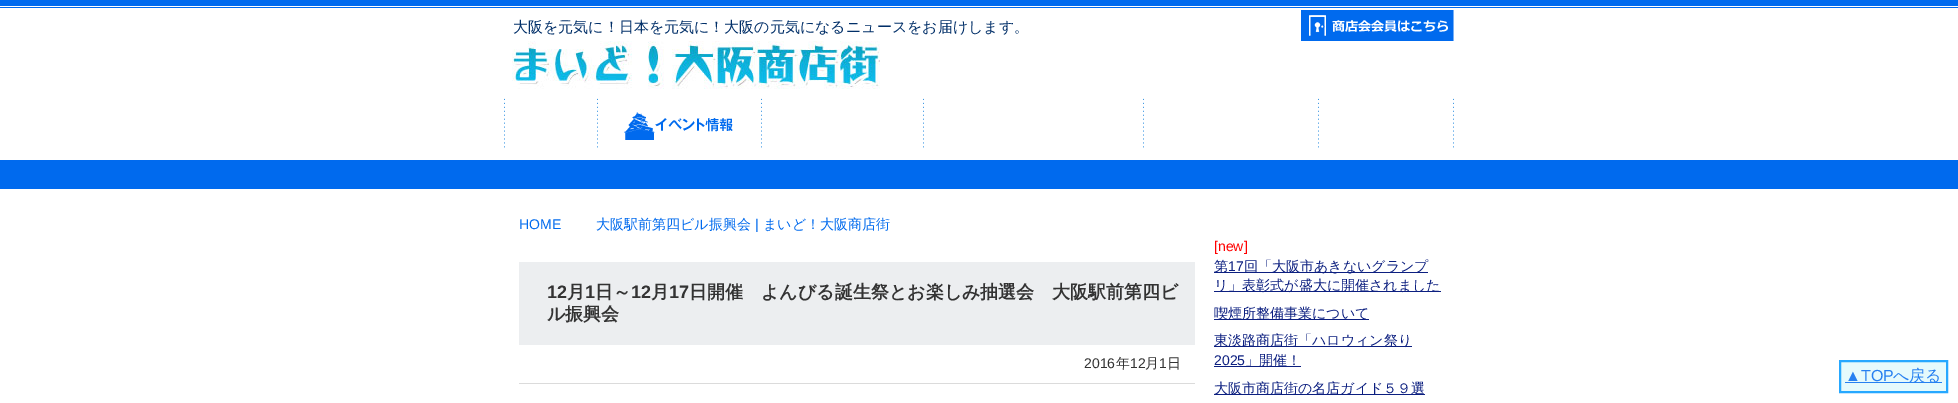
%!PS-Adobe-3.0
%%BoundingBox: 0 0 1958 403
%%LanguageLevel: 3
%%Pages: 1
%%EndComments
%%BeginProlog
/setink { 3 { 255 div 3 1 roll } repeat setrgbcolor } def
/usefont { [ exch dup neg 0 0 3 -1 roll 0 0 ] selectfont } def
/drawtext { setink usefont moveto show } def
/fillbox { setink rectfill } def
/drawimage { 5 dict begin { /h /w /y /x /name } { exch def } forall
  gsave x y translate w h scale
  w h 8 [w 0 0 h 0 0] name (r) file false 3 colorimage grestore end } def
%%EndProlog
%%BeginSetup
<< /PageSize [1958 403] >> setpagedevice
%%EndSetup
%%Page: 1 1
0 403 translate 1 -1 scale
4 setmiterlimit
0 0 1958 403 255 255 255 fillbox
(assets/img1.rgb) 0 0 1958 8 drawimage
(大阪を元気に！日本を元気に！大阪の元気になるニュースをお届けします。) 513 32 /WenQuanYiZenHei-Medium 15 1 47 104 drawtext
(assets/img2.rgb) 512 41 368 48 drawimage
(assets/img3.rgb) 1301 10 153 31 drawimage
(assets/img4.rgb) 504 98 1 50 drawimage
(assets/img4.rgb) 597 98 1 50 drawimage
(assets/img4.rgb) 761 98 1 50 drawimage
(assets/img5.rgb) 624 112 109 28 drawimage
(assets/img4.rgb) 923 98 1 50 drawimage
(assets/img4.rgb) 1143 98 1 50 drawimage
(assets/img4.rgb) 1318 98 1 50 drawimage
(assets/img4.rgb) 1453 98 1 50 drawimage
0 160 1958 29 0 106 238 fillbox
(HOME) 519 229 /LiberationSans-Regular 14 0 106 238 drawtext
(大阪駅前第四ビル振興会) 596 229 /WenQuanYiZenHei-Medium 14 0 106 238 drawtext
(|) 755 229 /LiberationSans-Regular 14 0 106 238 drawtext
(まいど！大阪商店街) 763 229 /WenQuanYiZenHei-Medium 14 0 106 238 drawtext
519 262 676 83 236 238 240 fillbox
(12) 547 298 /LiberationSans-Bold 18 51 51 51 drawtext
(月) 567 298 /WenQuanYiZenHei-Bold 18 51 51 51 drawtext
(1) 585 298 /LiberationSans-Bold 18 51 51 51 drawtext
(日～) 595 298 /WenQuanYiZenHei-Bold 18 51 51 51 drawtext
(12) 631 298 /LiberationSans-Bold 18 51 51 51 drawtext
(月) 651 298 /WenQuanYiZenHei-Bold 18 51 51 51 drawtext
(17) 669 298 /LiberationSans-Bold 18 51 51 51 drawtext
(日開催　よんびる誕生祭とお楽しみ抽選会　大阪駅前第四ビ) 689 298 /WenQuanYiZenHei-Bold 18 51 51 51 drawtext
(ル振興会) 547 320 /WenQuanYiZenHei-Bold 18 51 51 51 drawtext
(2016) 1084 368 /LiberationSans-Regular 14 51 51 51 drawtext
(年) 1116 368 /WenQuanYiZenHei-Medium 14 51 51 51 drawtext
(12) 1130 368 /LiberationSans-Regular 14 51 51 51 drawtext
(月) 1145 368 /WenQuanYiZenHei-Medium 14 51 51 51 drawtext
(1) 1159 368 /LiberationSans-Regular 14 51 51 51 drawtext
(日) 1167 368 /WenQuanYiZenHei-Medium 14 51 51 51 drawtext
519 383 676 1 219 219 219 fillbox
([new]) 1214 251 /LiberationSans-Regular 14 255 0 0 drawtext
1214 272 214 1 12 31 128 fillbox
(第) 1214 271 /WenQuanYiZenHei-Medium 14 12 31 128 drawtext
(17) 1228 271 /LiberationSans-Regular 14 12 31 128 drawtext
(回「大阪市あきないグランプ) 1244 271 /WenQuanYiZenHei-Medium 14 12 31 128 drawtext
1214 291 227 1 12 31 128 fillbox
(リ」表彰式が盛大に開催されました) 1214 290 /WenQuanYiZenHei-Medium 14 12 31 128 drawtext
1214 319 155 1 12 31 128 fillbox
(喫煙所整備事業について) 1214 318 /WenQuanYiZenHei-Medium 14 12 31 128 drawtext
1214 346 198 1 12 31 128 fillbox
(東淡路商店街「ハロウィン祭り) 1214 345 /WenQuanYiZenHei-Medium 14 12 31 128 drawtext
(2025) 1214 365 /LiberationSans-Regular 14 12 31 128 drawtext
1214 366 87 1 12 31 128 fillbox
(」開催！) 1245 365 /WenQuanYiZenHei-Medium 14 12 31 128 drawtext
1214 394 211 1 12 31 128 fillbox
(大阪市商店街の名店ガイド５９選) 1214 393 /WenQuanYiZenHei-Medium 14 12 31 128 drawtext
229 250 252 setink
1840 361 moveto 1947 361 lineto 1947 392 lineto 1840 392 lineto closepath gsave fill grestore
38 168 255 setink
2 setlinewidth
stroke
(▲TOP) 1845 381 /LiberationSans-Regular 16 38 128 241 drawtext
1845 382 97 1 38 128 241 fillbox
(へ戻る) 1893 381 /WenQuanYiZenHei-Medium 16 38 128 241 drawtext
showpage
%%EOF
